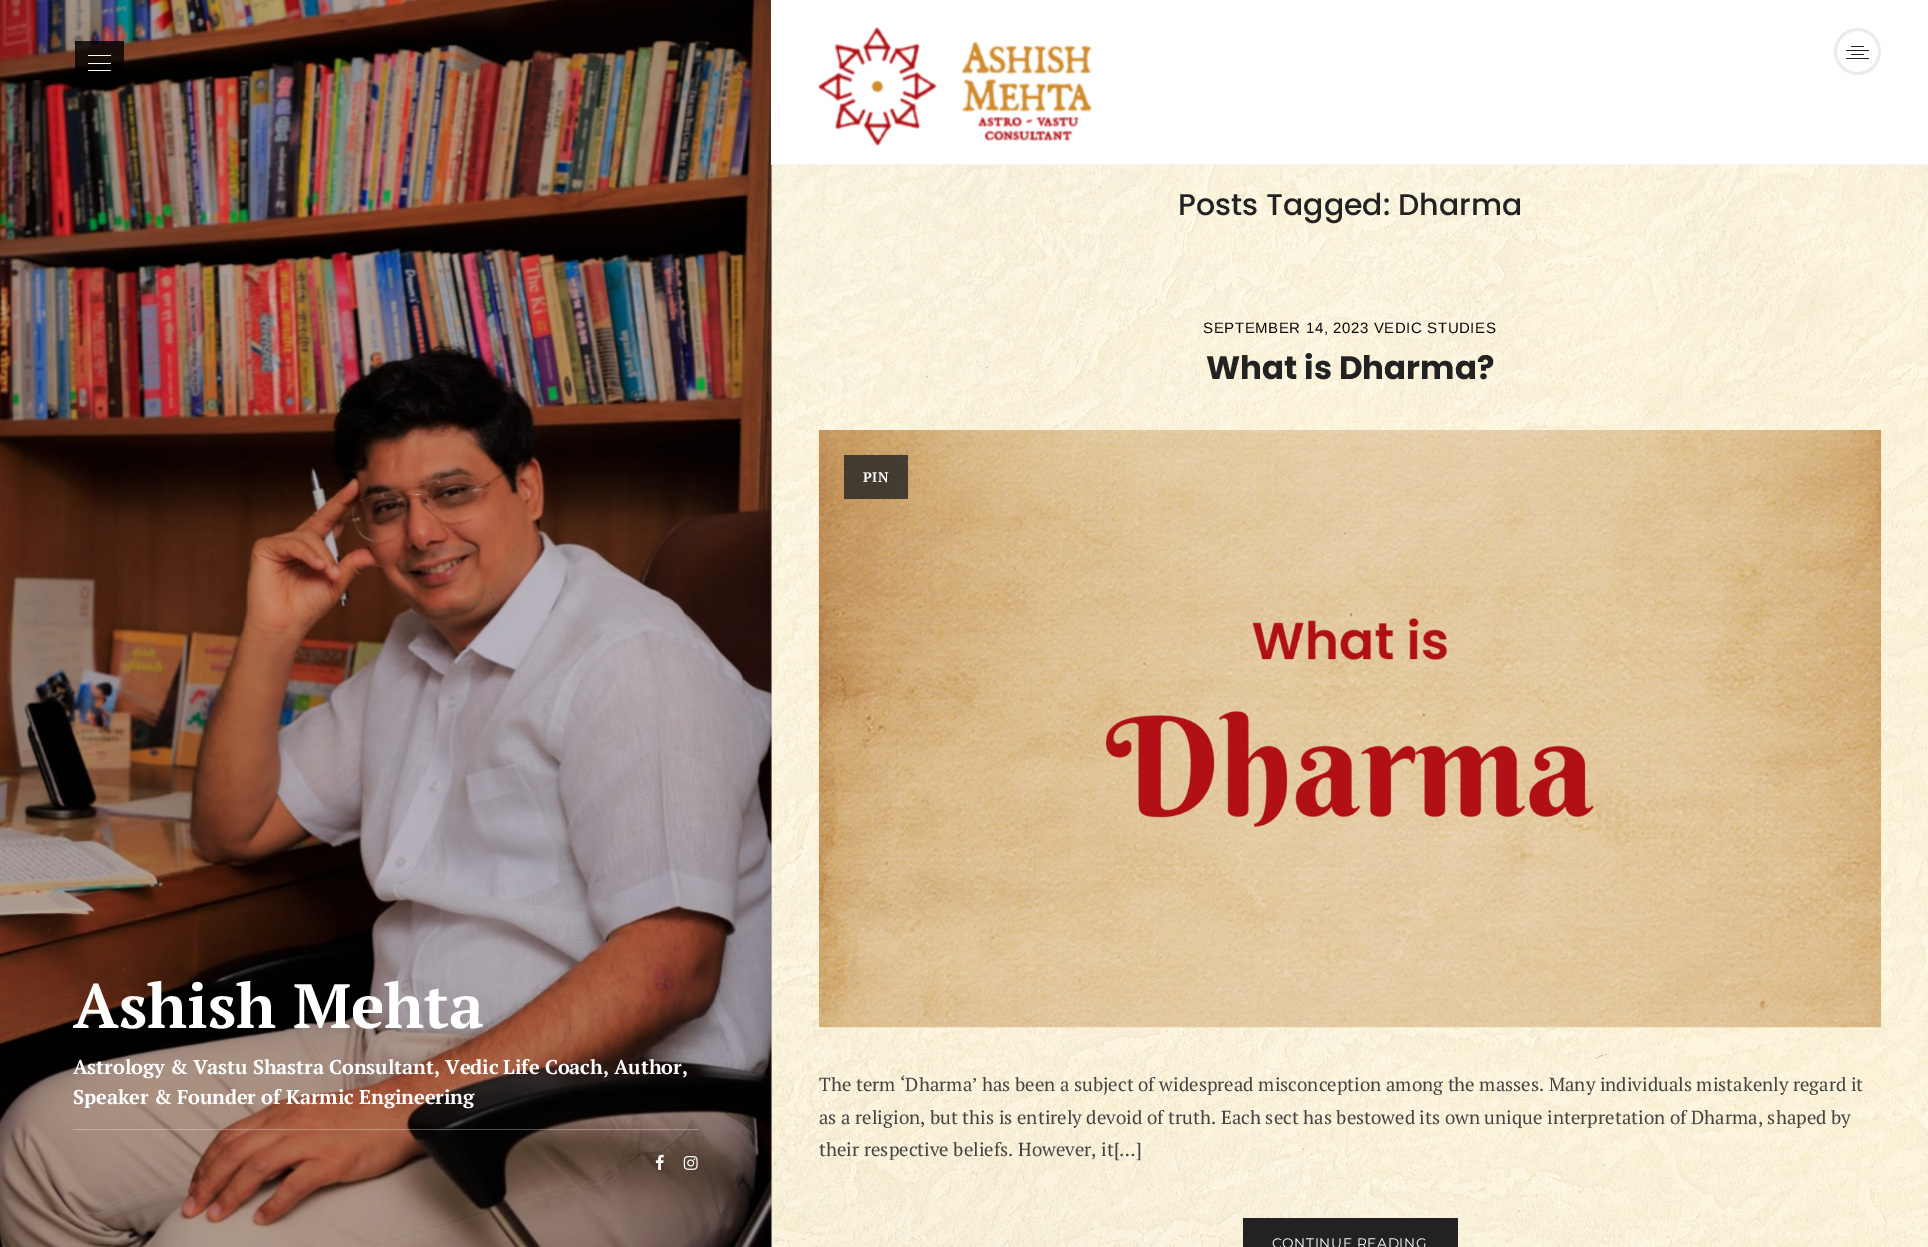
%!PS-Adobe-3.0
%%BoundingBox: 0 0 1928 1247
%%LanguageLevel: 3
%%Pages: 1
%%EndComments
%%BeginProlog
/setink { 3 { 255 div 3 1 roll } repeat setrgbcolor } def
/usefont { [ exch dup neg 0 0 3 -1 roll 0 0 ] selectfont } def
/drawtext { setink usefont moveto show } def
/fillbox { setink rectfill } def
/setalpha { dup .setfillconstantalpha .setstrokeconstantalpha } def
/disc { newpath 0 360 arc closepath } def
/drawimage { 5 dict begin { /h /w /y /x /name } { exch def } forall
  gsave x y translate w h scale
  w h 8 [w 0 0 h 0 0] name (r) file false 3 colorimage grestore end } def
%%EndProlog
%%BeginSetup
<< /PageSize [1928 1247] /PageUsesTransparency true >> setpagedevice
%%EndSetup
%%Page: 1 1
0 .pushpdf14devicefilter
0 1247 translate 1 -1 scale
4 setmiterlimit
0 0 1928 1247 255 255 255 fillbox
(assets/img1.rgb) 770 0 1158 1247 drawimage
(assets/img3.rgb) 0 0 772 1247 drawimage
0.19 setalpha
0 0 772 1247 0 0 0 fillbox
1 setalpha
771 0 1157 164 255 255 255 fillbox
771 164 1157 1 245 245 245 fillbox
(assets/img2.rgb) 818 27 274 119 drawimage
236 236 238 setink
3 setlinewidth
1857.5 51.5 22 disc stroke
1851 46 13 1 35 35 35 fillbox
1846 50 23 1 35 35 35 fillbox
1851 54 13 1 35 35 35 fillbox
1846 58 23 1 35 35 35 fillbox
0.8 setalpha
75 41 49 44 0 0 0 fillbox
1 setalpha
88 55 23 1 255 255 255 fillbox
88 63 23 1 255 255 255 fillbox
88 70 23 1 255 255 255 fillbox
(Ashish Mehta) 73 1028 /PTSerif-Bold 62.5 255 255 255 drawtext
/PTSerif-Bold 20 usefont
73 1074 moveto -0.12 0 (Astrology & Vastu Shastra Consultant, Vedic Life Coach, Author,) ashow
73 1104 moveto -0.12 0 (Speaker & Founder of Karmic Engineering) ashow
0.3 setalpha
73 1129 626 1 255 255 255 fillbox
1 setalpha
(assets/img4.rgb) 655 1154 9 16 drawimage
(assets/img5.rgb) 683 1156 15 14 drawimage
(Posts Tagged: Dharma) 1178 215 /Poppins-Medium 30 34 34 34 drawtext
/LiberationSans-Regular 15 usefont
10 10 10 setink
1203 333 moveto 0.6 0 (SEPTEMBER 14, 2023 VEDIC STUDIES) ashow
(What is Dharma?) 1206 379 /Poppins-Bold 32.5 34 34 34 drawtext
(assets/img6.rgb) 818 430 1064 598 drawimage
0.8 setalpha
844 455 64 44 34 34 34 fillbox
/PTSerif-Bold 13.75 usefont
1 setalpha
255 255 255 setink
863 482 moveto 0.6 0 (PIN) ashow
(The term ‘Dharma’ has been a subject of widespread misconception among the masses. Many individuals mistakenly regard it) 819 1091 /PTSerif-Regular 18.75 68 68 68 drawtext
(as a religion, but this is entirely devoid of truth. Each sect has bestowed its own unique interpretation of Dharma, shaped by) 819 1124 /PTSerif-Regular 18.75 68 68 68 drawtext
(their respective beliefs. However, it[…]) 819 1156 /PTSerif-Regular 18.75 68 68 68 drawtext
1243 1218 215 29 34 34 34 fillbox
/Montserrat-Regular 13.75 usefont
255 255 255 setink
1272 1248 moveto 0.6 0 (CONTINUE READING) ashow
.poppdf14devicefilter showpage
%%EOF
